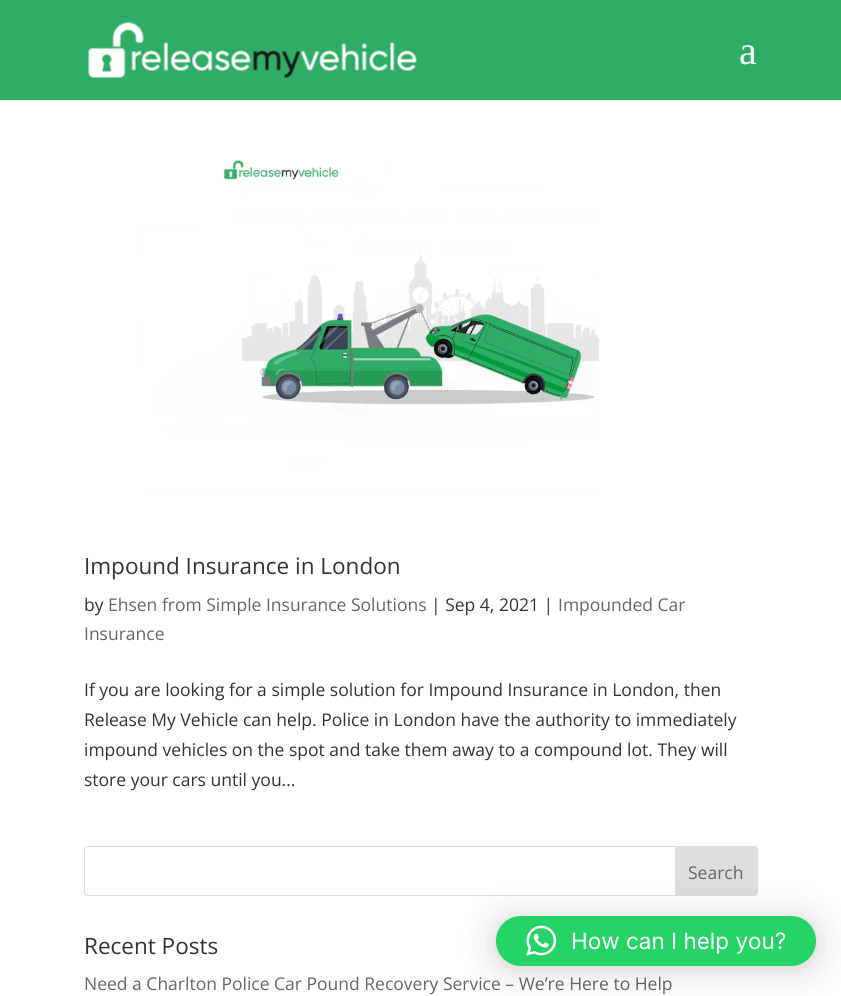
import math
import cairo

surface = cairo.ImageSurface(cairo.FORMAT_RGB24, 841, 996)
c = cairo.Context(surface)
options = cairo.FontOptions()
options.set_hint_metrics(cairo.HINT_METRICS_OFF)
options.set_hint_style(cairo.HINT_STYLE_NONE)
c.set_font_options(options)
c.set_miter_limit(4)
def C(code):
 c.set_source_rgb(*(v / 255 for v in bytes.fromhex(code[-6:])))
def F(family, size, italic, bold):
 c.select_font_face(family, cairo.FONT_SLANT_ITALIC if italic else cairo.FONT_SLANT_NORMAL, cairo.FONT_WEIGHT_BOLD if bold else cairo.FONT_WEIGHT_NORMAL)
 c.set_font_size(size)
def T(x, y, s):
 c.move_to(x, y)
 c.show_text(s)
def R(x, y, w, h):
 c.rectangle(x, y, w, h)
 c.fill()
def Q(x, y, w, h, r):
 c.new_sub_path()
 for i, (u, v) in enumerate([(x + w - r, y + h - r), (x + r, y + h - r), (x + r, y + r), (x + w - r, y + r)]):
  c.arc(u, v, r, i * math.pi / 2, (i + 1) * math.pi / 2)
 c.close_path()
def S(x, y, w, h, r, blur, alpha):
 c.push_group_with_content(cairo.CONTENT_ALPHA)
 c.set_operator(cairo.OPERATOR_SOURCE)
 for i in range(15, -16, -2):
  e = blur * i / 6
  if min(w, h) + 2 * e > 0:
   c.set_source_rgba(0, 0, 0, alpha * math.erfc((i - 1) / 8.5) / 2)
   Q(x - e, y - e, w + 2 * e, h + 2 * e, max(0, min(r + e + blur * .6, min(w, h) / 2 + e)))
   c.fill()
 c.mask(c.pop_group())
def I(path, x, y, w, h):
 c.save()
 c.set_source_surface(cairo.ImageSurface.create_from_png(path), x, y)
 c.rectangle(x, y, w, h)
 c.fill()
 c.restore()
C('ffffff')
c.paint()
C('e6e6e6')
R(0,100,841,1)
C('2fac66')
R(0,0,841,100)
I('1.png',88,22,329,56)
F('Liberation Serif',40,0,0)
C('ffffff')
T(739,64,'a')
I('2.png',142,160,457,331)
F('Open Sans',22.5,0,0)
C('333333')
T(84,574,'Impound Insurance in London')
F('Open Sans',17.5,0,0)
T(84,611,'by')
C('666666')
T(108,611,'Ehsen from Simple Insurance Solutions')
C('333333')
T(431,611,'| Sep 4, 2021 |')
C('666666')
T(558,611,'Impounded Car')
T(84,640,'Insurance')
C('333333')
T(84,696,'If you are looking for a simple solution for Impound Insurance in London, then')
T(84,726,'Release My Vehicle can help. Police in London have the authority to immediately')
T(84,756,'impound vehicles on the spot and take them away to a compound lot. They will')
T(84,786,'store your cars until you...')
Q(84.5,846.5,673,49,3.5)
C('dddddd')
c.set_line_width(1)
c.stroke()
c.new_path()
c.move_to(675.5,846.5)
c.line_to(754,846.5)
c.curve_to(756,846.5,757.5,848,757.5,850)
c.line_to(757.5,892)
c.curve_to(757.5,894,756,895.5,754,895.5)
c.line_to(675.5,895.5)
c.close_path()
c.fill_preserve()
c.stroke()
C('666666')
T(688,879,'Search')
F('Open Sans',22.5,0,0)
C('333333')
T(84,954,'Recent Posts')
F('Open Sans',17.5,0,0)
C('666666')
T(84,990,'Need a Charlton Police Car Pound Recovery Service – We’re Here to Help')
C('000000')
S(496,919,320,50,25,20,.16)
S(496,918,320,50,25,4,.06)
C('25d366')
Q(496,916,320,50,25)
c.fill()
I('3.png',526,925,31,31)
F('Inter',22.5,0,0)
C('ffffff')
T(571,949,'How can I help you?')
surface.write_to_png('o.png')
